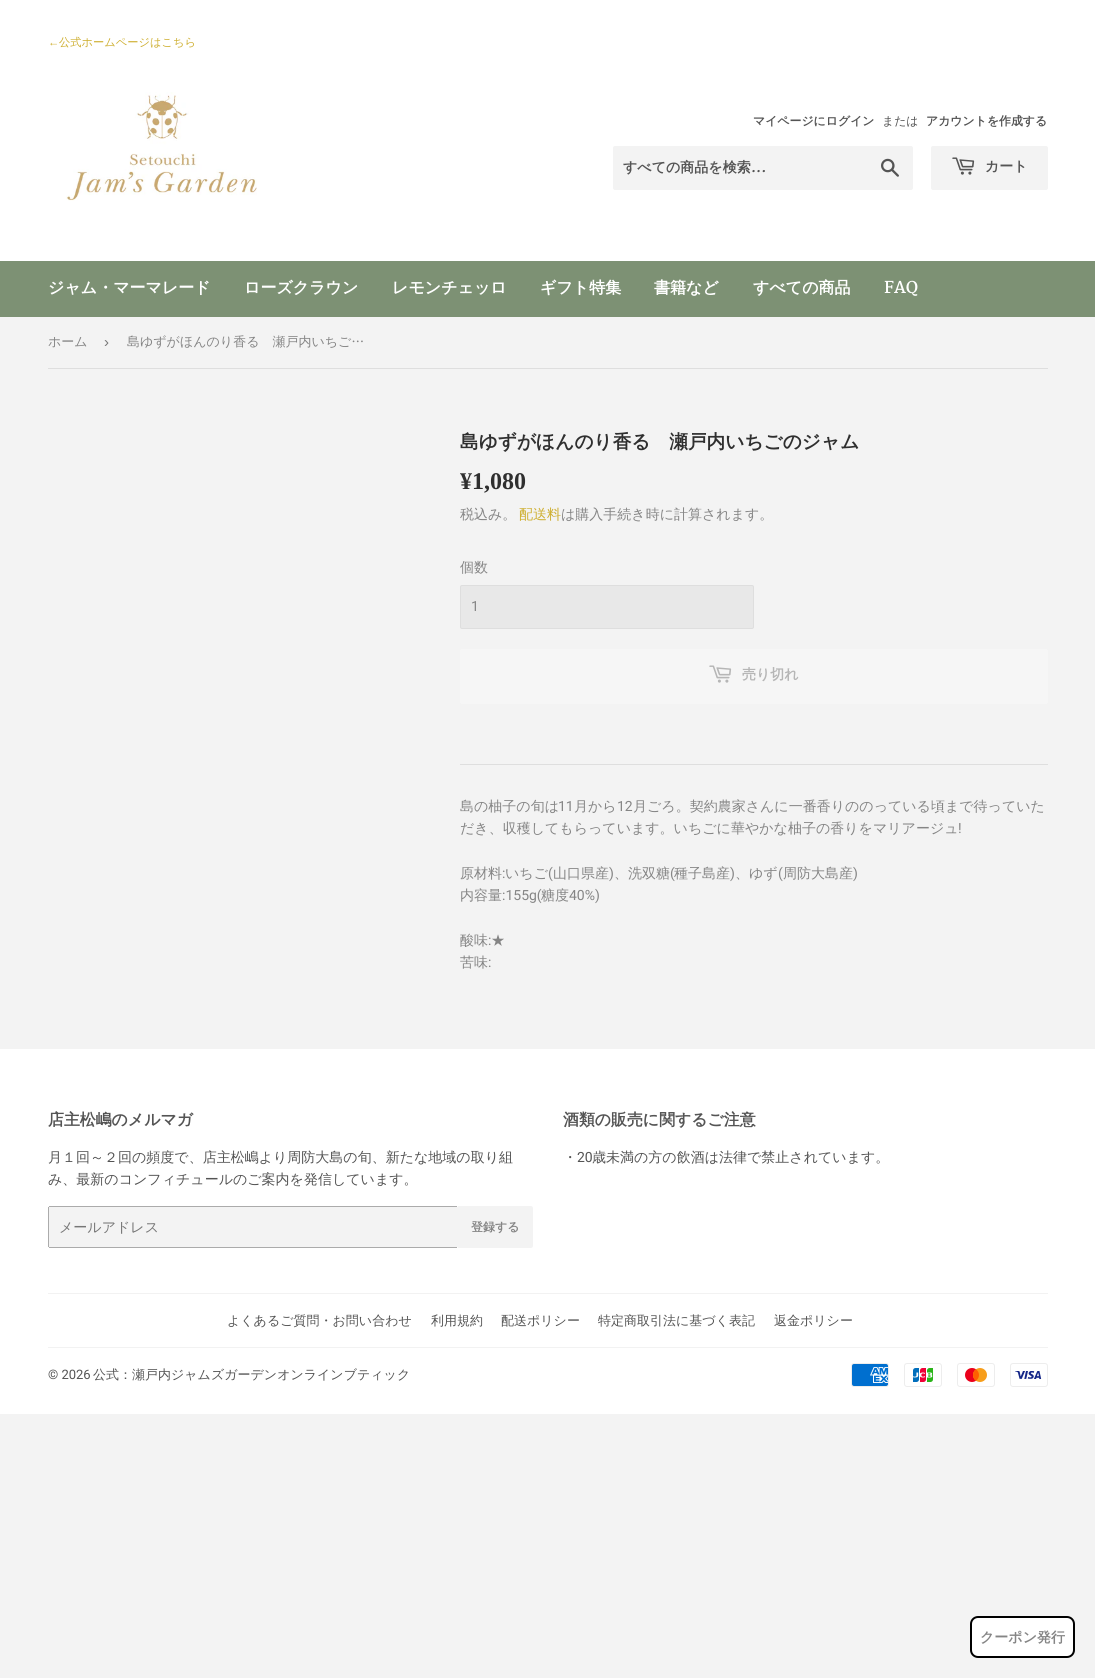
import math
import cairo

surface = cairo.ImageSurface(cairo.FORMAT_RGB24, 1095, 1678)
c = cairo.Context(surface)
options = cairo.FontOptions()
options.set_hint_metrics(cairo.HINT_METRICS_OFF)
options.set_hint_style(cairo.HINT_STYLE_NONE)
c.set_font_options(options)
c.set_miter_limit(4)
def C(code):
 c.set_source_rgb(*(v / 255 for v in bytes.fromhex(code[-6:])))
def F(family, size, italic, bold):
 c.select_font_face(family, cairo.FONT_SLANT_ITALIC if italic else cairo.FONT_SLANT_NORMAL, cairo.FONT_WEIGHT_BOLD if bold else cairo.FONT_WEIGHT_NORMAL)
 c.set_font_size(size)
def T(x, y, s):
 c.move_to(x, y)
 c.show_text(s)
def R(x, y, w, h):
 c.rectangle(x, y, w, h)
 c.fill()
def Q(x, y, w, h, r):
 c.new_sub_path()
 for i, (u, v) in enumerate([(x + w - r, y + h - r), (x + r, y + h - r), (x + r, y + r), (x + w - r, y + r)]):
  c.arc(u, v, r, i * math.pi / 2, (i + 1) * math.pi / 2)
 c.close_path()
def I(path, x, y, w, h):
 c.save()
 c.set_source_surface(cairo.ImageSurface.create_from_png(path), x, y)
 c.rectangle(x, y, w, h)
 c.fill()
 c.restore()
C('f3f3f3')
c.paint()
C('ffffff')
R(0,0,1095,261)
F('Liberation Sans',11.25,0,0)
C('ceaf31')
T(48,46,'←')
F('WenQuanYi Zen Hei Medium',11.25,0,0)
T(59,46,'公式ホームページはこちら')
I('1.png',66,92,191,109)
F('WenQuanYi Zen Hei',11.9,0,1)
C('545454')
T(753,125,'マイページにログイン')
F('WenQuanYi Zen Hei Medium',11.9,0,0)
T(882,125,'または')
F('WenQuanYi Zen Hei',11.9,0,1)
T(926,125,'アカウントを作成する')
C('f3f3f3')
Q(613,146,300,44,2)
c.fill()
F('WenQuanYi Zen Hei',14,0,1)
C('545454')
T(623,172,'すべての商品を検索')
F('Martel',14,0,1)
T(751,172,'...')
I('2.png',881,158,18,19)
C('f3f3f3')
Q(931,146,117,44,2)
c.fill()
I('3.png',952,157,23,18)
F('WenQuanYi Zen Hei',14,0,1)
C('545454')
T(985,171,'カート')
C('7d9174')
R(0,261,1095,56)
F('WenQuanYi Zen Hei',16,0,1)
C('ffffff')
T(48,293,'ジャム・マーマレード')
T(244,293,'ローズクラウン')
T(392,293,'レモンチェッロ')
T(540,293,'ギフト特集')
T(654,293,'書籍など')
T(753,293,'すべての商品')
F('Martel',16,0,1)
T(884,293,'FAQ')
C('dedede')
R(48,368,1000,1)
F('WenQuanYi Zen Hei Medium',13,0,0)
C('858585')
T(48,346,'ホーム')
F('Liberation Sans',15,0,0)
C('767676')
T(104,347,'›')
F('WenQuanYi Zen Hei Medium',13,0,0)
C('858585')
T(127,346,'島ゆずがほんのり香る　瀬戸内いちご…')
F('WenQuanYi Zen Hei',18.7,0,1)
C('2f2f2f')
T(460,448,'島ゆずがほんのり香る　瀬戸内いちごのジャム')
F('Liberation Serif',24,0,1)
T(460,489,'¥1,080')
F('WenQuanYi Zen Hei Medium',14,0,0)
C('858585')
T(460,519,'税込み。')
C('ceaf31')
T(519,519,'配送料')
C('858585')
T(561,519,'は購入手続き時に計算されます。')
T(460,572,'個数')
C('e8e8e8')
Q(460.5,585.5,293,43,1.5)
c.fill_preserve()
C('dedede')
c.set_line_width(1)
c.stroke()
F('Roboto',14,0,0)
C('858585')
T(471,611,'1')
C('f6f6f6')
Q(460,649,588,55,2)
c.fill()
I('4.png',709,665,23,18)
F('WenQuanYi Zen Hei',14,0,1)
C('b6b6b6')
T(742,679,'売り切れ')
C('dedede')
R(460,764,588,1)
F('WenQuanYi Zen Hei Medium',14,0,0)
C('858585')
T(460,811,'島の柚子の旬は')
F('Roboto',14,0,0)
T(558,811,'11')
F('WenQuanYi Zen Hei Medium',14,0,0)
T(574,811,'月から')
F('Roboto',14,0,0)
T(617,811,'12')
F('WenQuanYi Zen Hei Medium',14,0,0)
T(633,811,'月ごろ。契約農家さんに一番香りののっている頃まで待っていた')
T(460,833,'だき、収穫してもらっています。いちごに華やかな柚子の香りをマリアージュ')
F('Roboto',14,0,0)
T(958,833,'!')
F('WenQuanYi Zen Hei Medium',14,0,0)
T(460,878,'原材料')
F('Roboto',14,0,0)
T(502,878,':')
F('WenQuanYi Zen Hei Medium',14,0,0)
T(505,878,'いちご')
F('Roboto',14,0,0)
T(548,878,'(')
F('WenQuanYi Zen Hei Medium',14,0,0)
T(553,878,'山口県産')
F('Roboto',14,0,0)
T(609,878,')')
F('WenQuanYi Zen Hei Medium',14,0,0)
T(614,878,'、洗双糖')
F('Roboto',14,0,0)
T(670,878,'(')
F('WenQuanYi Zen Hei Medium',14,0,0)
T(674,878,'種子島産')
F('Roboto',14,0,0)
T(730,878,')')
F('WenQuanYi Zen Hei Medium',14,0,0)
T(735,878,'、ゆず')
F('Roboto',14,0,0)
T(778,878,'(')
F('WenQuanYi Zen Hei Medium',14,0,0)
T(783,878,'周防大島産')
F('Roboto',14,0,0)
T(853,878,')')
F('WenQuanYi Zen Hei Medium',14,0,0)
T(460,900,'内容量')
F('Roboto',14,0,0)
T(502,900,':155g(')
F('WenQuanYi Zen Hei Medium',14,0,0)
T(541,900,'糖度')
F('Roboto',14,0,0)
T(569,900,'40%)')
F('WenQuanYi Zen Hei Medium',14,0,0)
T(460,945,'酸味')
F('Roboto',14,0,0)
T(488,945,':')
F('WenQuanYi Zen Hei Medium',14,0,0)
T(491,945,'★')
T(460,967,'苦味')
F('Roboto',14,0,0)
T(488,967,':')
C('ffffff')
R(0,1049,1095,365)
F('WenQuanYi Zen Hei',15.9,0,1)
C('545454')
T(48,1125,'店主松嶋のメルマガ')
F('WenQuanYi Zen Hei Medium',14,0,0)
T(48,1162,'月１回～２回の頻度で、店主松嶋より周防大島の旬、新たな地域の取り組')
T(48,1184,'み、最新のコンフィチュールのご案内を発信しています。')
C('f3f3f3')
Q(48,1206,410,42,2)
c.fill()
C('ababab')
R(49,1206,408,1)
R(49,1247,408,1)
R(48,1207,1,40)
C('767676')
T(59,1232,'メールアドレス')
C('f3f3f3')
c.new_path()
c.move_to(458,1206)
c.line_to(531,1206)
c.curve_to(532,1206,533,1207,533,1208)
c.line_to(533,1246)
c.curve_to(533,1247,532,1248,531,1248)
c.line_to(458,1248)
c.close_path()
c.fill()
F('WenQuanYi Zen Hei',12,0,1)
C('858585')
T(471,1231,'登録する')
F('WenQuanYi Zen Hei',15.9,0,1)
C('545454')
T(563,1125,'酒類の販売に関するご注意')
F('WenQuanYi Zen Hei Medium',14,0,0)
T(563,1162,'・')
F('Roboto',14,0,0)
T(577,1162,'20')
F('WenQuanYi Zen Hei Medium',14,0,0)
T(592,1162,'歳未満の方の飲酒は法律で禁止されています。')
C('f2f2f2')
R(48,1293,1000,1)
F('WenQuanYi Zen Hei Medium',13,0,0)
C('545454')
T(227,1325,'よくあるご質問・お問い合わせ')
T(431,1325,'利用規約')
T(501,1325,'配送ポリシー')
T(598,1325,'特定商取引法に基づく表記')
T(774,1325,'返金ポリシー')
C('f2f2f2')
R(48,1347,1000,1)
F('Roboto',13,0,0)
C('545454')
T(48,1379,'© 2026')
F('WenQuanYi Zen Hei Medium',13,0,0)
T(93,1379,'公式：瀬戸内ジャムズガーデンオンラインブティック')
I('5.png',851,1363,38,24)
I('6.png',904,1363,38,24)
I('7.png',957,1363,38,24)
I('8.png',1010,1363,38,24)
C('ffffff')
Q(971,1617,103,40,7)
c.fill_preserve()
C('000000')
c.set_line_width(2)
c.stroke()
F('WenQuanYi Zen Hei',14,0,1)
C('858585')
T(980,1642,'クーポン発行')
surface.write_to_png('o.png')
